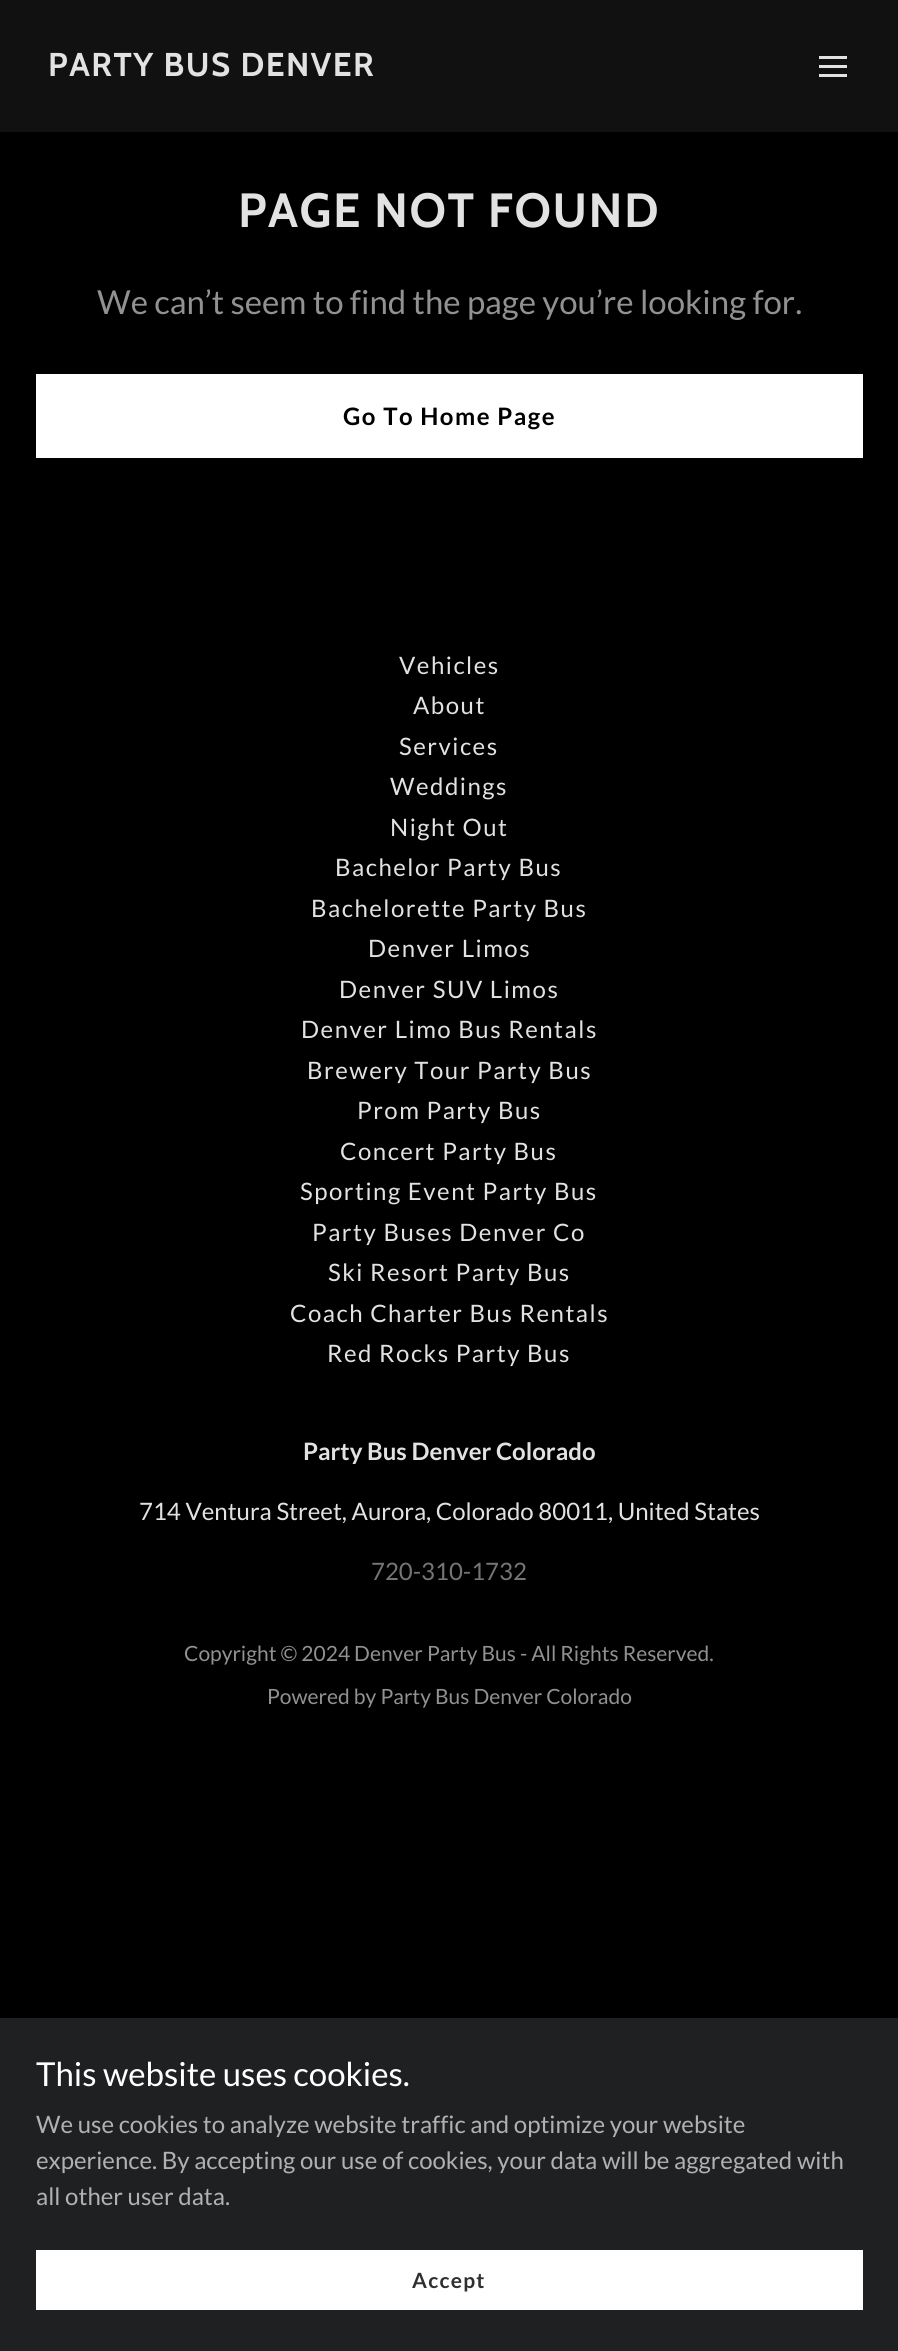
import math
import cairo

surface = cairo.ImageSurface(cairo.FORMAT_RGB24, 898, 2351)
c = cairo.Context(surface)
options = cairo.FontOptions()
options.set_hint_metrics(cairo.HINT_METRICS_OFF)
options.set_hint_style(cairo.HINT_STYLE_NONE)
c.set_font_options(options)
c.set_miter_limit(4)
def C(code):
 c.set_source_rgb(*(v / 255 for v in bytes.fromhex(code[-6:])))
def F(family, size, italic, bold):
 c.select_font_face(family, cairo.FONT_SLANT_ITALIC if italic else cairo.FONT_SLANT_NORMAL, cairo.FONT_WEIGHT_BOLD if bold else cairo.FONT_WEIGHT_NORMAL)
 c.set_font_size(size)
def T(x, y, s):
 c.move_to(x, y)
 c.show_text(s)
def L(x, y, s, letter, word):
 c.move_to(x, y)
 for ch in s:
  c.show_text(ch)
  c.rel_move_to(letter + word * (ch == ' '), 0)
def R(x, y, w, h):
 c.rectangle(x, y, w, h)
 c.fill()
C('000000')
c.paint()
C('111111')
R(0,0,898,132)
F('Cabin',33,0,1)
C('e2e2e2')
L(48,76,'PARTY BUS DENVER',1.5,0)
R(819,56,28,3)
R(819,65,28,3)
R(819,74,28,3)
F('Cabin',48,0,1)
L(238,227,'PAGE NOT FOUND',1.5,0)
F('Lato',33,0,0)
C('919191')
T(97,314,'We can’t seem to find the page you’re looking for.')
C('ffffff')
R(36,374,827,84)
F('Lato',24,0,1)
C('000000')
L(343,425,'Go To Home Page',1.5,0)
F('Lato',24,0,0)
C('e2e2e2')
L(399,674,'Vehicles',1.5,0)
L(413,714,'About',1.5,0)
L(399,755,'Services',1.5,0)
L(390,795,'Weddings',1.5,0)
L(390,836,'Night Out',1.5,0)
L(335,876,'Bachelor Party Bus',1.5,0)
L(311,917,'Bachelorette Party Bus',1.5,0)
L(368,957,'Denver Limos',1.5,0)
L(339,998,'Denver SUV Limos',1.5,0)
L(301,1038,'Denver Limo Bus Rentals',1.5,0)
L(307,1079,'Brewery Tour Party Bus',1.5,0)
L(357,1119,'Prom Party Bus',1.5,0)
L(340,1160,'Concert Party Bus',1.5,0)
L(300,1200,'Sporting Event Party Bus',1.5,0)
L(312,1241,'Party Buses Denver Co',1.5,0)
L(328,1281,'Ski Resort Party Bus',1.5,0)
L(290,1322,'Coach Charter Bus Rentals',1.5,0)
L(327,1362,'Red Rocks Party Bus',1.5,0)
F('Lato',24,0,1)
T(303,1460,'Party Bus Denver Colorado')
F('Lato',24,0,0)
T(139,1520,'714 Ventura Street, Aurora, Colorado 80011, United States')
C('747575')
T(371,1580,'720-310-1732')
F('Lato',21,0,0)
C('919191')
T(184,1661,'Copyright © 2024 Denver Party Bus - All Rights Reserved.')
T(267,1704,'Powered by Party Bus Denver Colorado')
C('1f2021')
R(0,2018,898,333)
F('Lato',33,0,0)
C('ffffff')
T(36,2086,'This website uses cookies.')
F('Lato',24,0,0)
C('b0b1b3')
T(36,2133,'We use cookies to analyze website traffic and optimize your website')
T(36,2169,'experience. By accepting our use of cookies, your data will be aggregated with')
T(36,2205,'all other user data.')
C('ffffff')
R(36,2250,827,60)
F('Lato',21,0,1)
C('303030')
L(412,2288,'Accept',1.25,0)
surface.write_to_png('o.png')
